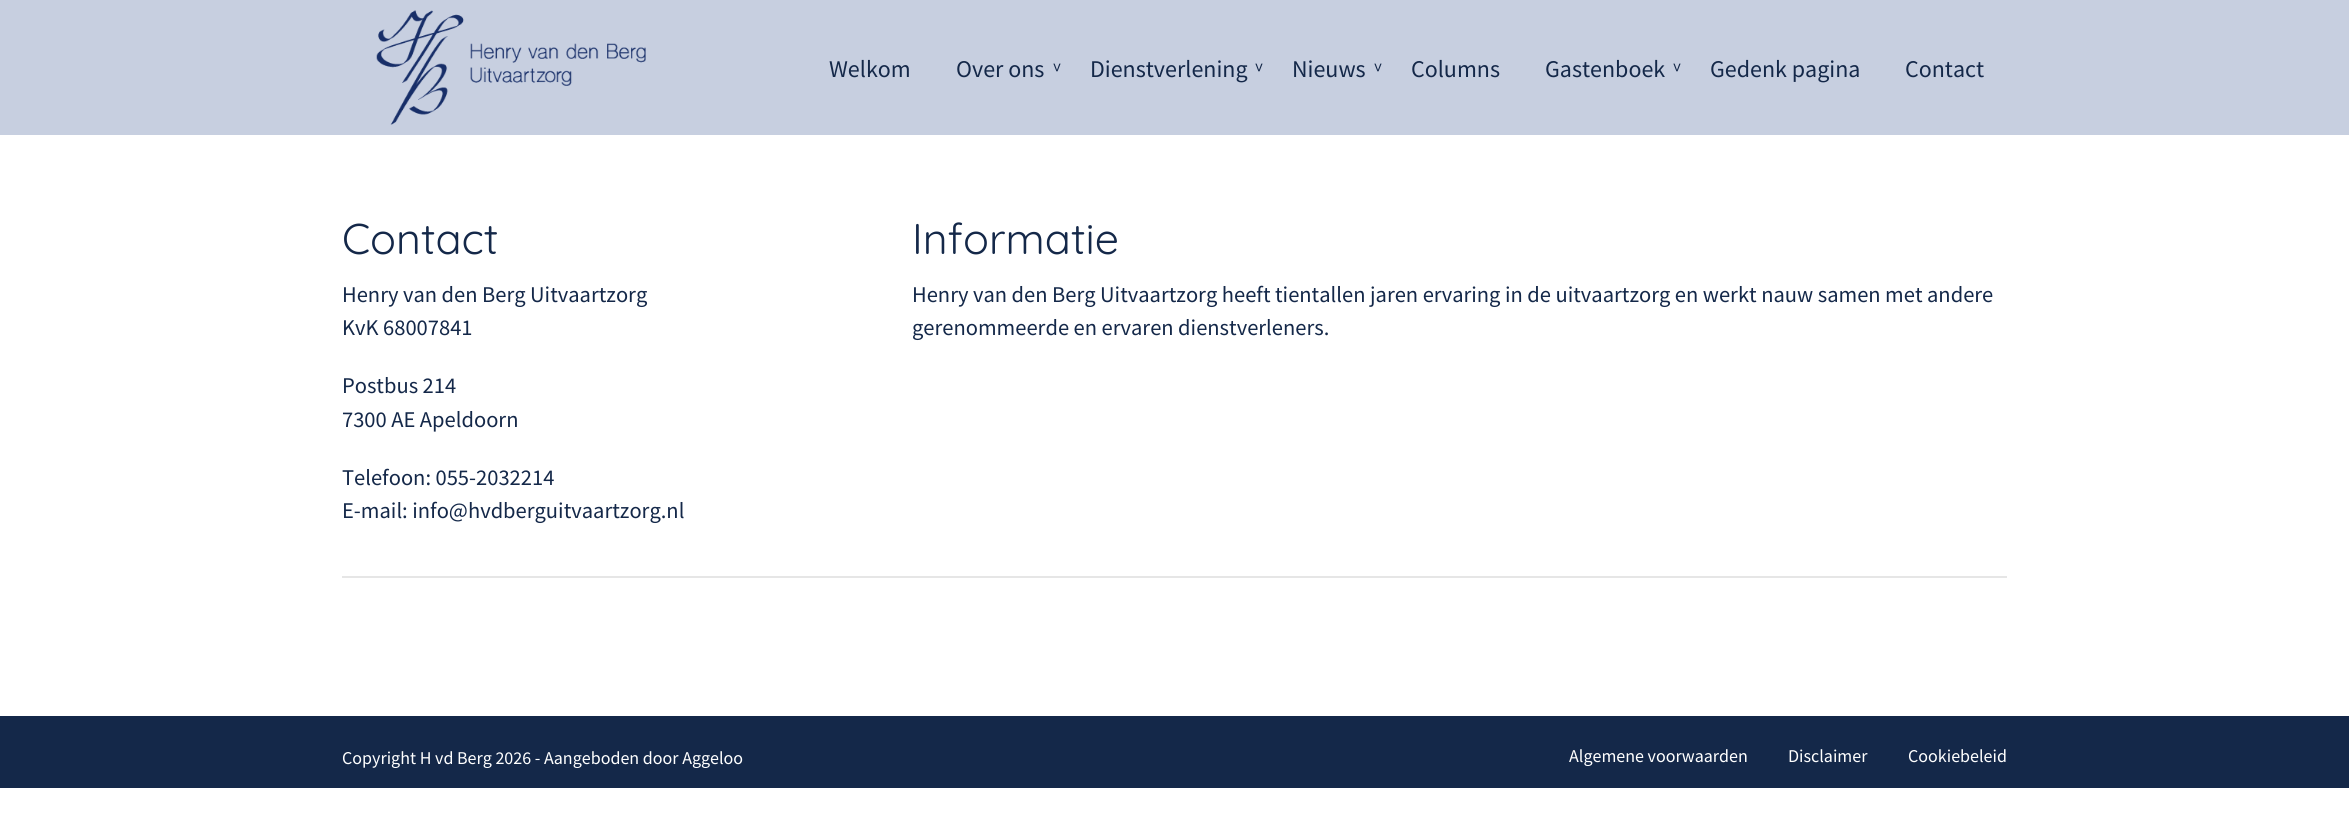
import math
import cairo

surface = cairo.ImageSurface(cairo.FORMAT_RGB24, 2349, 824)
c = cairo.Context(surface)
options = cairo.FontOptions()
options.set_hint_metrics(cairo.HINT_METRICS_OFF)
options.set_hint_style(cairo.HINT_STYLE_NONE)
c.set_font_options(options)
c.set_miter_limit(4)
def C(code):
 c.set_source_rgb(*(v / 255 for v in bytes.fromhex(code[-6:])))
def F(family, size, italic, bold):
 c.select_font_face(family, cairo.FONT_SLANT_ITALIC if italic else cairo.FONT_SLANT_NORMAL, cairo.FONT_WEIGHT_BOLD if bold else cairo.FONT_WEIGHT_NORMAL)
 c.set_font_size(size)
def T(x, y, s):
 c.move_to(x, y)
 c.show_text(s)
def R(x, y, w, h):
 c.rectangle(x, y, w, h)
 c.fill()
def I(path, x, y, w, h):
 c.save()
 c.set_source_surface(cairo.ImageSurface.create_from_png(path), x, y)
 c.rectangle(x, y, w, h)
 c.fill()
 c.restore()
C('ffffff')
c.paint()
C('c7cfe0')
R(0,0,2349,135)
I('1.png',376,10,270,115)
F('Source Sans Pro',24,0,0)
C('142849')
T(829,77,'Welkom')
T(956,77,'Over ons')
F('Source Sans Pro',18,0,0)
c.save()
c.translate(1051,63)
c.rotate(90 * math.pi / 180)
T(0,0,'>')
c.restore()
F('Source Sans Pro',24,0,0)
T(1090,77,'Dienstverlening')
F('Source Sans Pro',18,0,0)
c.save()
c.translate(1253,63)
c.rotate(90 * math.pi / 180)
T(0,0,'>')
c.restore()
F('Source Sans Pro',24,0,0)
T(1292,77,'Nieuws')
F('Source Sans Pro',18,0,0)
c.save()
c.translate(1372,63)
c.rotate(90 * math.pi / 180)
T(0,0,'>')
c.restore()
F('Source Sans Pro',24,0,0)
T(1411,77,'Columns')
T(1545,77,'Gastenboek')
F('Source Sans Pro',18,0,0)
c.save()
c.translate(1671,63)
c.rotate(90 * math.pi / 180)
T(0,0,'>')
c.restore()
F('Source Sans Pro',24,0,0)
T(1710,77,'Gedenk pagina')
T(1905,77,'Contact')
F('Quicksand Light',43,0,0)
T(342,254,'Contact')
F('Source Sans Pro',22.5,0,0)
T(342,302,'Henry van den Berg Uitvaartzorg')
T(342,335,'KvK 68007841')
T(342,393,'Postbus 214')
T(342,427,'7300 AE Apeldoorn')
T(342,485,'Telefoon: 055-2032214')
T(342,518,'E-mail: info@hvdberguitvaartzorg.nl')
F('Quicksand Light',43,0,0)
T(912,254,'Informatie')
F('Source Sans Pro',22.5,0,0)
T(912,302,'Henry van den Berg Uitvaartzorg heeft tientallen jaren ervaring in de uitvaartzorg en werkt nauw samen met andere')
T(912,335,'gerenommeerde en ervaren dienstverleners.')
C('e6e6e6')
R(342,576,1665,2)
C('142849')
R(0,716,2349,72)
F('Source Sans Pro',18,0,0)
C('ffffff')
T(342,764,'Copyright H vd Berg 2026 - Aangeboden door Aggeloo')
T(1569,762,'Algemene voorwaarden')
T(1788,762,'Disclaimer')
T(1908,762,'Cookiebeleid')
surface.write_to_png('o.png')
